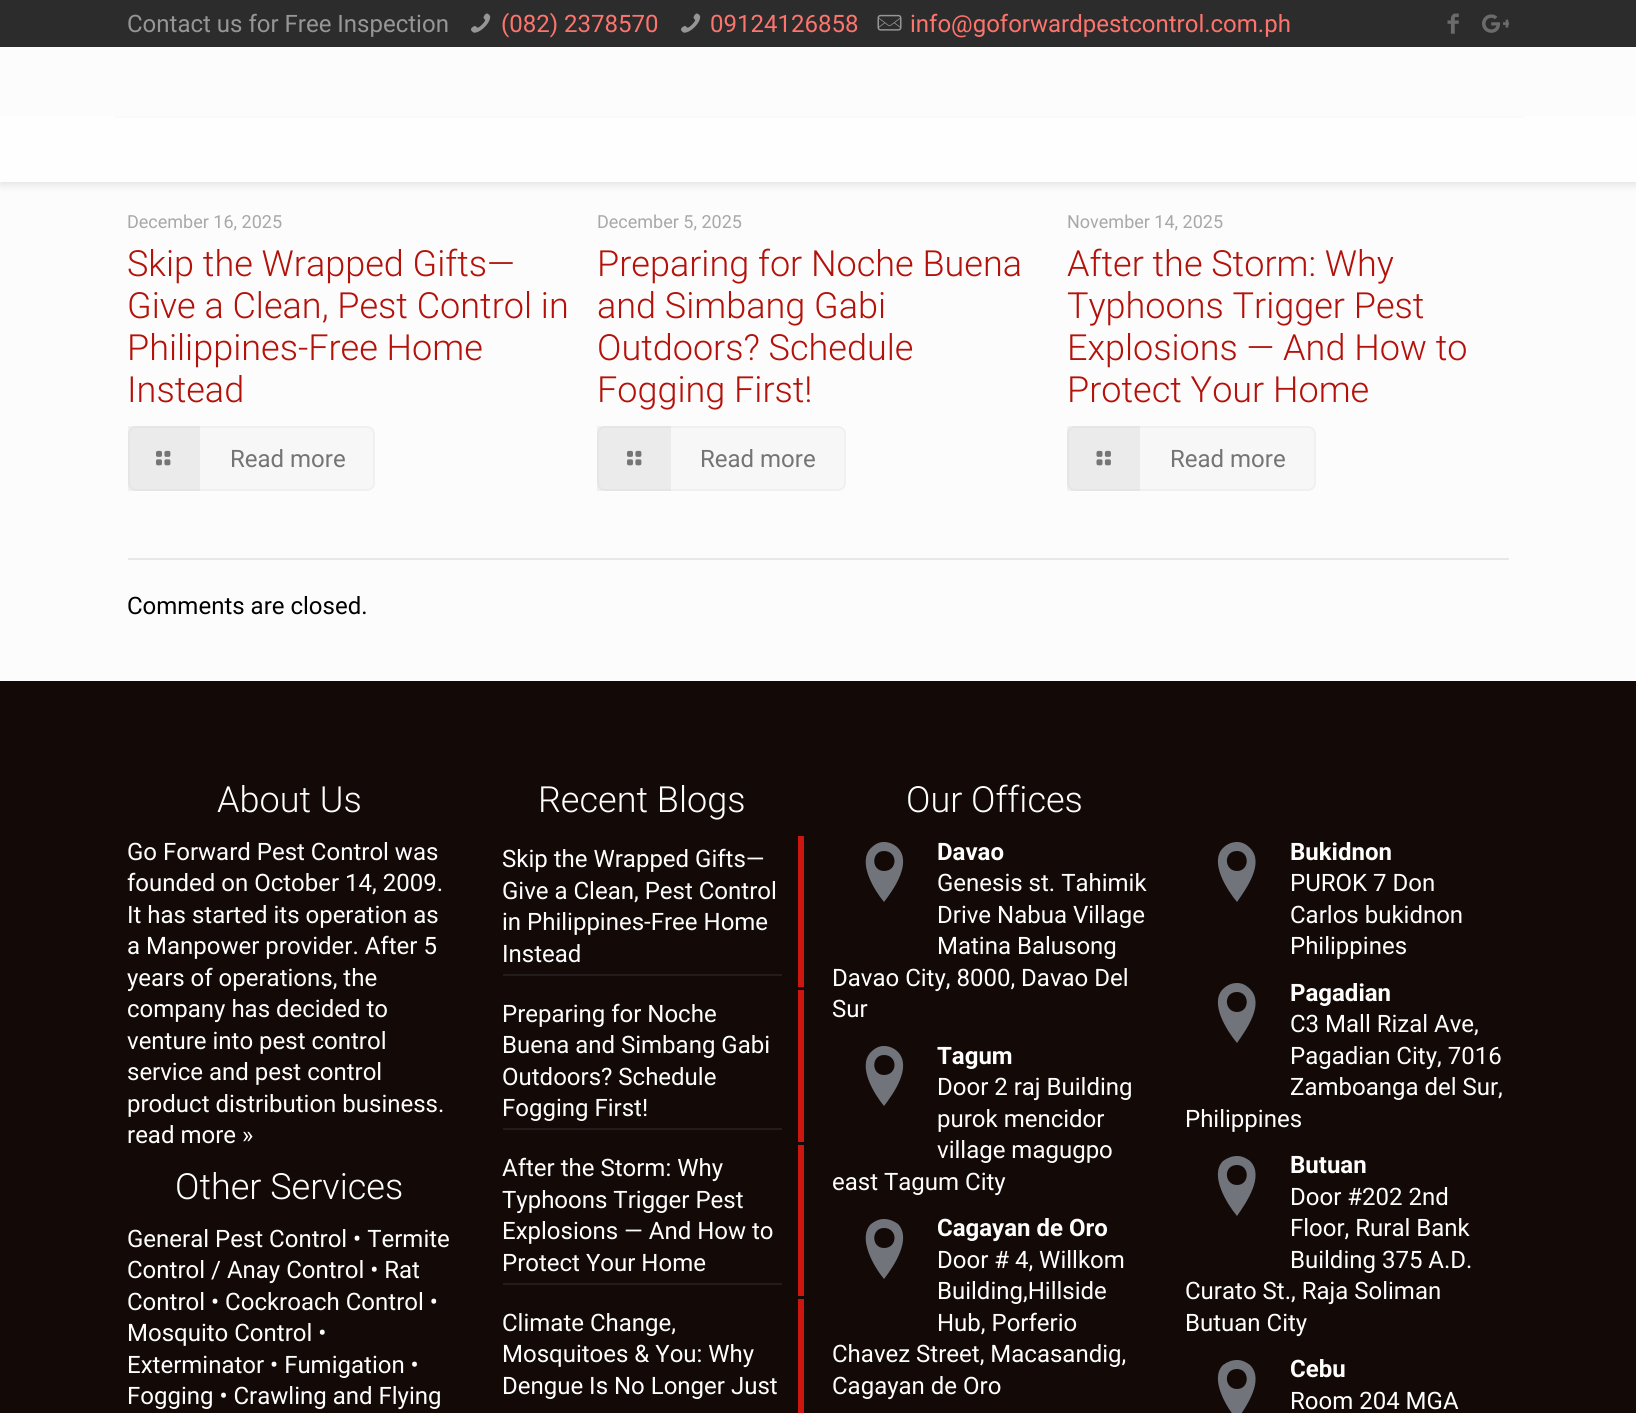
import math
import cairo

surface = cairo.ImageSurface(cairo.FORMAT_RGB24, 1636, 1413)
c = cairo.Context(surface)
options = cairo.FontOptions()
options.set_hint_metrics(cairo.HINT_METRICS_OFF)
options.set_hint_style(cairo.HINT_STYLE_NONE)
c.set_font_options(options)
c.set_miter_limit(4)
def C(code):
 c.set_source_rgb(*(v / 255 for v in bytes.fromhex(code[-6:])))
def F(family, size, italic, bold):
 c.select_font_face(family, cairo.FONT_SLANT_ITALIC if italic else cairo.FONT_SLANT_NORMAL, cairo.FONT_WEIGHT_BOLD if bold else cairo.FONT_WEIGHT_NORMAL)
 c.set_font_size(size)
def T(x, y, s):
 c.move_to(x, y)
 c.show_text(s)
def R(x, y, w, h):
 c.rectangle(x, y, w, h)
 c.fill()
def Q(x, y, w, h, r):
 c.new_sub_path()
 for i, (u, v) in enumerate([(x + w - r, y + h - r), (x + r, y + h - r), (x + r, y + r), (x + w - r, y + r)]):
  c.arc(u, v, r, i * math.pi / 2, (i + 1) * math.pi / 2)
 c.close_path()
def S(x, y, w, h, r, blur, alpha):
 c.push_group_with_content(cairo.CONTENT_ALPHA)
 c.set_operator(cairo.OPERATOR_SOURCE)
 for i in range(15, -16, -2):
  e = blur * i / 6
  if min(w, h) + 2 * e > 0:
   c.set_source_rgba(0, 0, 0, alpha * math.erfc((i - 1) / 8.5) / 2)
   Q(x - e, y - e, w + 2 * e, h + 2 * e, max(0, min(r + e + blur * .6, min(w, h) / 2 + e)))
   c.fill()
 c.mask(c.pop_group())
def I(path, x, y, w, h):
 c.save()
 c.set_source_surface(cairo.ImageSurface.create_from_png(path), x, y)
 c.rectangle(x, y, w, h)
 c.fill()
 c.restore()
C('fcfcfc')
c.paint()
C('2c2c2c')
R(0,0,1636,47)
F('Roboto',24,0,0)
C('969696')
T(127,32,'Contact us for Free Inspection')
I('1.png',471,13,20,20)
C('fd746d')
T(501,32,'(082) 2378570')
I('1.png',681,13,20,20)
T(710,32,'09124126858')
I('2.png',877,14,25,17)
T(910,32,'info@goforwardpestcontrol.com.ph')
I('3.png',1447,13,12,21)
I('4.png',1482,14,27,19)
C('e8e8e8')
R(114,116,1410,2)
c.save()
c.set_fill_rule(cairo.FILL_RULE_EVEN_ODD)
c.new_path()
c.move_to(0,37)
c.line_to(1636,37)
c.line_to(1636,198)
c.line_to(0,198)
c.close_path()
c.move_to(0,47)
c.line_to(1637,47)
c.line_to(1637,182)
c.line_to(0,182)
c.close_path()
c.clip()
C('000000')
S(0,50,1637,135,0,4,.1)
c.restore()
c.set_source_rgba(1,1,1,0.78)
R(0,116,1636,66)
F('Roboto',18,0,0)
C('a8a8a8')
T(127,228,'December 16, 2025')
F('Roboto Light',36,0,0)
C('b31109')
T(127,276,'Skip the Wrapped Gifts—')
T(127,318,'Give a Clean, Pest Control in')
T(127,360,'Philippines-Free Home')
T(127,402,'Instead')
C('f7f7f7')
Q(129,427,245,63,7)
c.fill_preserve()
C('f0f0f0')
c.stroke()
c.set_source_rgba(0,0,0,0.05)
R(128,426,72,65)
I('5.png',156,450,15,16)
F('Roboto',24,0,0)
C('747474')
T(230,467,'Read more')
F('Roboto',18,0,0)
C('a8a8a8')
T(597,228,'December 5, 2025')
F('Roboto Light',36,0,0)
C('b31109')
T(597,276,'Preparing for Noche Buena')
T(597,318,'and Simbang Gabi')
T(597,360,'Outdoors? Schedule')
T(597,402,'Fogging First!')
C('f7f7f7')
Q(598,427,247,63,7)
c.fill_preserve()
C('f0f0f0')
c.stroke()
c.set_source_rgba(0,0,0,0.05)
R(597,426,74,65)
I('5.png',627,450,15,16)
F('Roboto',24,0,0)
C('747474')
T(700,467,'Read more')
F('Roboto',18,0,0)
C('a8a8a8')
T(1067,228,'November 14, 2025')
F('Roboto Light',36,0,0)
C('b31109')
T(1067,276,'After the Storm: Why')
T(1067,318,'Typhoons Trigger Pest')
T(1067,360,'Explosions — And How to')
T(1067,402,'Protect Your Home')
C('f7f7f7')
Q(1068,427,247,63,7)
c.fill_preserve()
C('f0f0f0')
c.stroke()
c.set_source_rgba(0,0,0,0.05)
R(1067,426,73,65)
I('6.png',1096,450,15,16)
F('Roboto',24,0,0)
C('747474')
T(1170,467,'Read more')
C('e8e8e8')
R(128,558,1381,2)
C('000000')
T(127,614,'Comments are closed.')
C('130907')
R(0,681,1636,732)
F('Roboto Light',36,0,0)
C('ffffff')
T(217,812,'About Us')
F('Roboto',24,0,0)
T(127,860,'Go Forward Pest Control was')
T(127,891,'founded on October 14, 2009.')
T(127,923,'It has started its operation as')
T(127,954,'a Manpower provider. After 5')
T(127,986,'years of operations, the')
T(127,1017,'company has decided to')
T(127,1049,'venture into pest control')
T(127,1080,'service and pest control')
T(127,1112,'product distribution business.')
T(127,1143,'read more »')
F('Roboto Light',36,0,0)
T(175,1199,'Other Services')
F('Roboto',24,0,0)
T(127,1247,'General Pest Control • Termite')
T(127,1278,'Control / Anay Control • Rat')
T(127,1310,'Control • Cockroach Control •')
T(127,1341,'Mosquito Control •')
T(127,1373,'Exterminator • Fumigation •')
T(127,1404,'Fogging • Crawling and Flying')
F('Roboto Light',36,0,0)
T(538,812,'Recent Blogs')
C('241c1a')
R(503,974,279,2)
F('Roboto',24,0,0)
C('ffffff')
T(502,867,'Skip the Wrapped Gifts—')
T(502,899,'Give a Clean, Pest Control')
T(502,930,'in Philippines-Free Home')
T(502,962,'Instead')
C('cd160d')
R(798,836,6,151)
C('241c1a')
R(503,1128,279,2)
C('ffffff')
T(502,1022,'Preparing for Noche')
T(502,1053,'Buena and Simbang Gabi')
T(502,1085,'Outdoors? Schedule')
T(502,1116,'Fogging First!')
C('cd160d')
R(798,990,6,152)
C('241c1a')
R(503,1283,279,2)
C('ffffff')
T(502,1176,'After the Storm: Why')
T(502,1208,'Typhoons Trigger Pest')
T(502,1239,'Explosions — And How to')
T(502,1271,'Protect Your Home')
C('cd160d')
R(798,1145,6,151)
C('ffffff')
T(502,1331,'Climate Change,')
T(502,1362,'Mosquitoes & You: Why')
T(502,1394,'Dengue Is No Longer Just')
C('cd160d')
R(798,1299,6,114)
F('Roboto Light',36,0,0)
C('ffffff')
T(906,812,'Our Offices')
C('71757b')
c.new_path()
c.move_to(884,842)
c.curve_to(889,842,894,844,898,848)
c.curve_to(912,863,894,889,884,902)
c.curve_to(874,890,857,862,871,848)
c.curve_to(875,844,879,842,884,842)
c.close_path()
c.move_to(884,871)
c.curve_to(898,871,898,851,884,851)
c.curve_to(871,851,871,871,884,871)
c.close_path()
c.fill()
F('Roboto',24,0,1)
C('ffffff')
T(937,860,'Davao')
F('Roboto',24,0,0)
T(937,891,'Genesis st. Tahimik')
T(937,923,'Drive Nabua Village')
T(937,954,'Matina Balusong')
T(832,986,'Davao City, 8000, Davao Del')
T(832,1017,'Sur')
C('71757b')
c.new_path()
c.move_to(884,1046)
c.curve_to(889,1046,894,1048,898,1052)
c.curve_to(912,1067,894,1093,884,1106)
c.curve_to(874,1094,857,1066,871,1052)
c.curve_to(875,1048,879,1046,884,1046)
c.close_path()
c.move_to(884,1075)
c.curve_to(898,1075,898,1055,884,1055)
c.curve_to(871,1055,871,1075,884,1075)
c.close_path()
c.fill()
F('Roboto',24,0,1)
C('ffffff')
T(937,1064,'Tagum')
F('Roboto',24,0,0)
T(937,1095,'Door 2 raj Building')
T(937,1127,'purok mencidor')
T(937,1158,'village magugpo')
T(832,1190,'east Tagum City')
C('71757b')
c.new_path()
c.move_to(884,1219)
c.curve_to(889,1219,894,1221,898,1224)
c.curve_to(912,1239,894,1266,884,1279)
c.curve_to(874,1267,857,1238,871,1224)
c.curve_to(875,1221,879,1219,884,1219)
c.close_path()
c.move_to(884,1248)
c.curve_to(898,1248,898,1228,884,1228)
c.curve_to(871,1228,871,1248,884,1248)
c.close_path()
c.fill()
F('Roboto',24,0,1)
C('ffffff')
T(937,1236,'Cagayan de Oro')
F('Roboto',24,0,0)
T(937,1268,'Door # 4, Willkom')
T(937,1299,'Building,Hillside')
T(937,1331,'Hub, Porferio')
T(832,1362,'Chavez Street, Macasandig,')
T(832,1394,'Cagayan de Oro')
C('71757b')
c.new_path()
c.move_to(1237,842)
c.curve_to(1242,842,1246,844,1250,848)
c.curve_to(1265,863,1246,889,1237,902)
c.curve_to(1227,890,1209,862,1223,848)
c.curve_to(1227,844,1232,842,1237,842)
c.close_path()
c.move_to(1237,871)
c.curve_to(1250,871,1250,851,1237,851)
c.curve_to(1223,851,1224,871,1237,871)
c.close_path()
c.fill()
F('Roboto',24,0,1)
C('ffffff')
T(1290,860,'Bukidnon')
F('Roboto',24,0,0)
T(1290,891,'PUROK 7 Don')
T(1290,923,'Carlos bukidnon')
T(1290,954,'Philippines')
C('71757b')
c.new_path()
c.move_to(1237,983)
c.curve_to(1242,983,1246,985,1250,989)
c.curve_to(1265,1004,1246,1030,1237,1043)
c.curve_to(1227,1031,1209,1003,1223,989)
c.curve_to(1227,985,1232,983,1237,983)
c.close_path()
c.move_to(1237,1012)
c.curve_to(1250,1012,1250,992,1237,992)
c.curve_to(1223,992,1224,1012,1237,1012)
c.close_path()
c.fill()
F('Roboto',24,0,1)
C('ffffff')
T(1290,1001,'Pagadian')
F('Roboto',24,0,0)
T(1290,1032,'C3 Mall Rizal Ave,')
T(1290,1064,'Pagadian City, 7016')
T(1290,1095,'Zamboanga del Sur,')
T(1185,1127,'Philippines')
C('71757b')
c.new_path()
c.move_to(1237,1156)
c.curve_to(1242,1156,1246,1158,1250,1161)
c.curve_to(1265,1176,1246,1203,1237,1216)
c.curve_to(1227,1204,1209,1175,1223,1161)
c.curve_to(1227,1158,1232,1156,1237,1156)
c.close_path()
c.move_to(1237,1185)
c.curve_to(1250,1185,1250,1165,1237,1165)
c.curve_to(1223,1165,1224,1185,1237,1185)
c.close_path()
c.fill()
F('Roboto',24,0,1)
C('ffffff')
T(1290,1173,'Butuan')
F('Roboto',24,0,0)
T(1290,1205,'Door #202 2nd')
T(1290,1236,'Floor, Rural Bank')
T(1290,1268,'Building 375 A.D.')
T(1185,1299,'Curato St., Raja Soliman')
T(1185,1331,'Butuan City')
C('71757b')
c.new_path()
c.move_to(1237,1360)
c.curve_to(1242,1360,1246,1362,1250,1365)
c.curve_to(1265,1380,1246,1407,1237,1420)
c.curve_to(1227,1408,1209,1379,1223,1365)
c.curve_to(1227,1362,1232,1360,1237,1360)
c.close_path()
c.move_to(1237,1389)
c.curve_to(1250,1389,1250,1369,1237,1369)
c.curve_to(1223,1369,1224,1389,1237,1389)
c.close_path()
c.fill()
F('Roboto',24,0,1)
C('ffffff')
T(1290,1377,'Cebu')
F('Roboto',24,0,0)
T(1290,1409,'Room 204 MGA')
surface.write_to_png('o.png')
